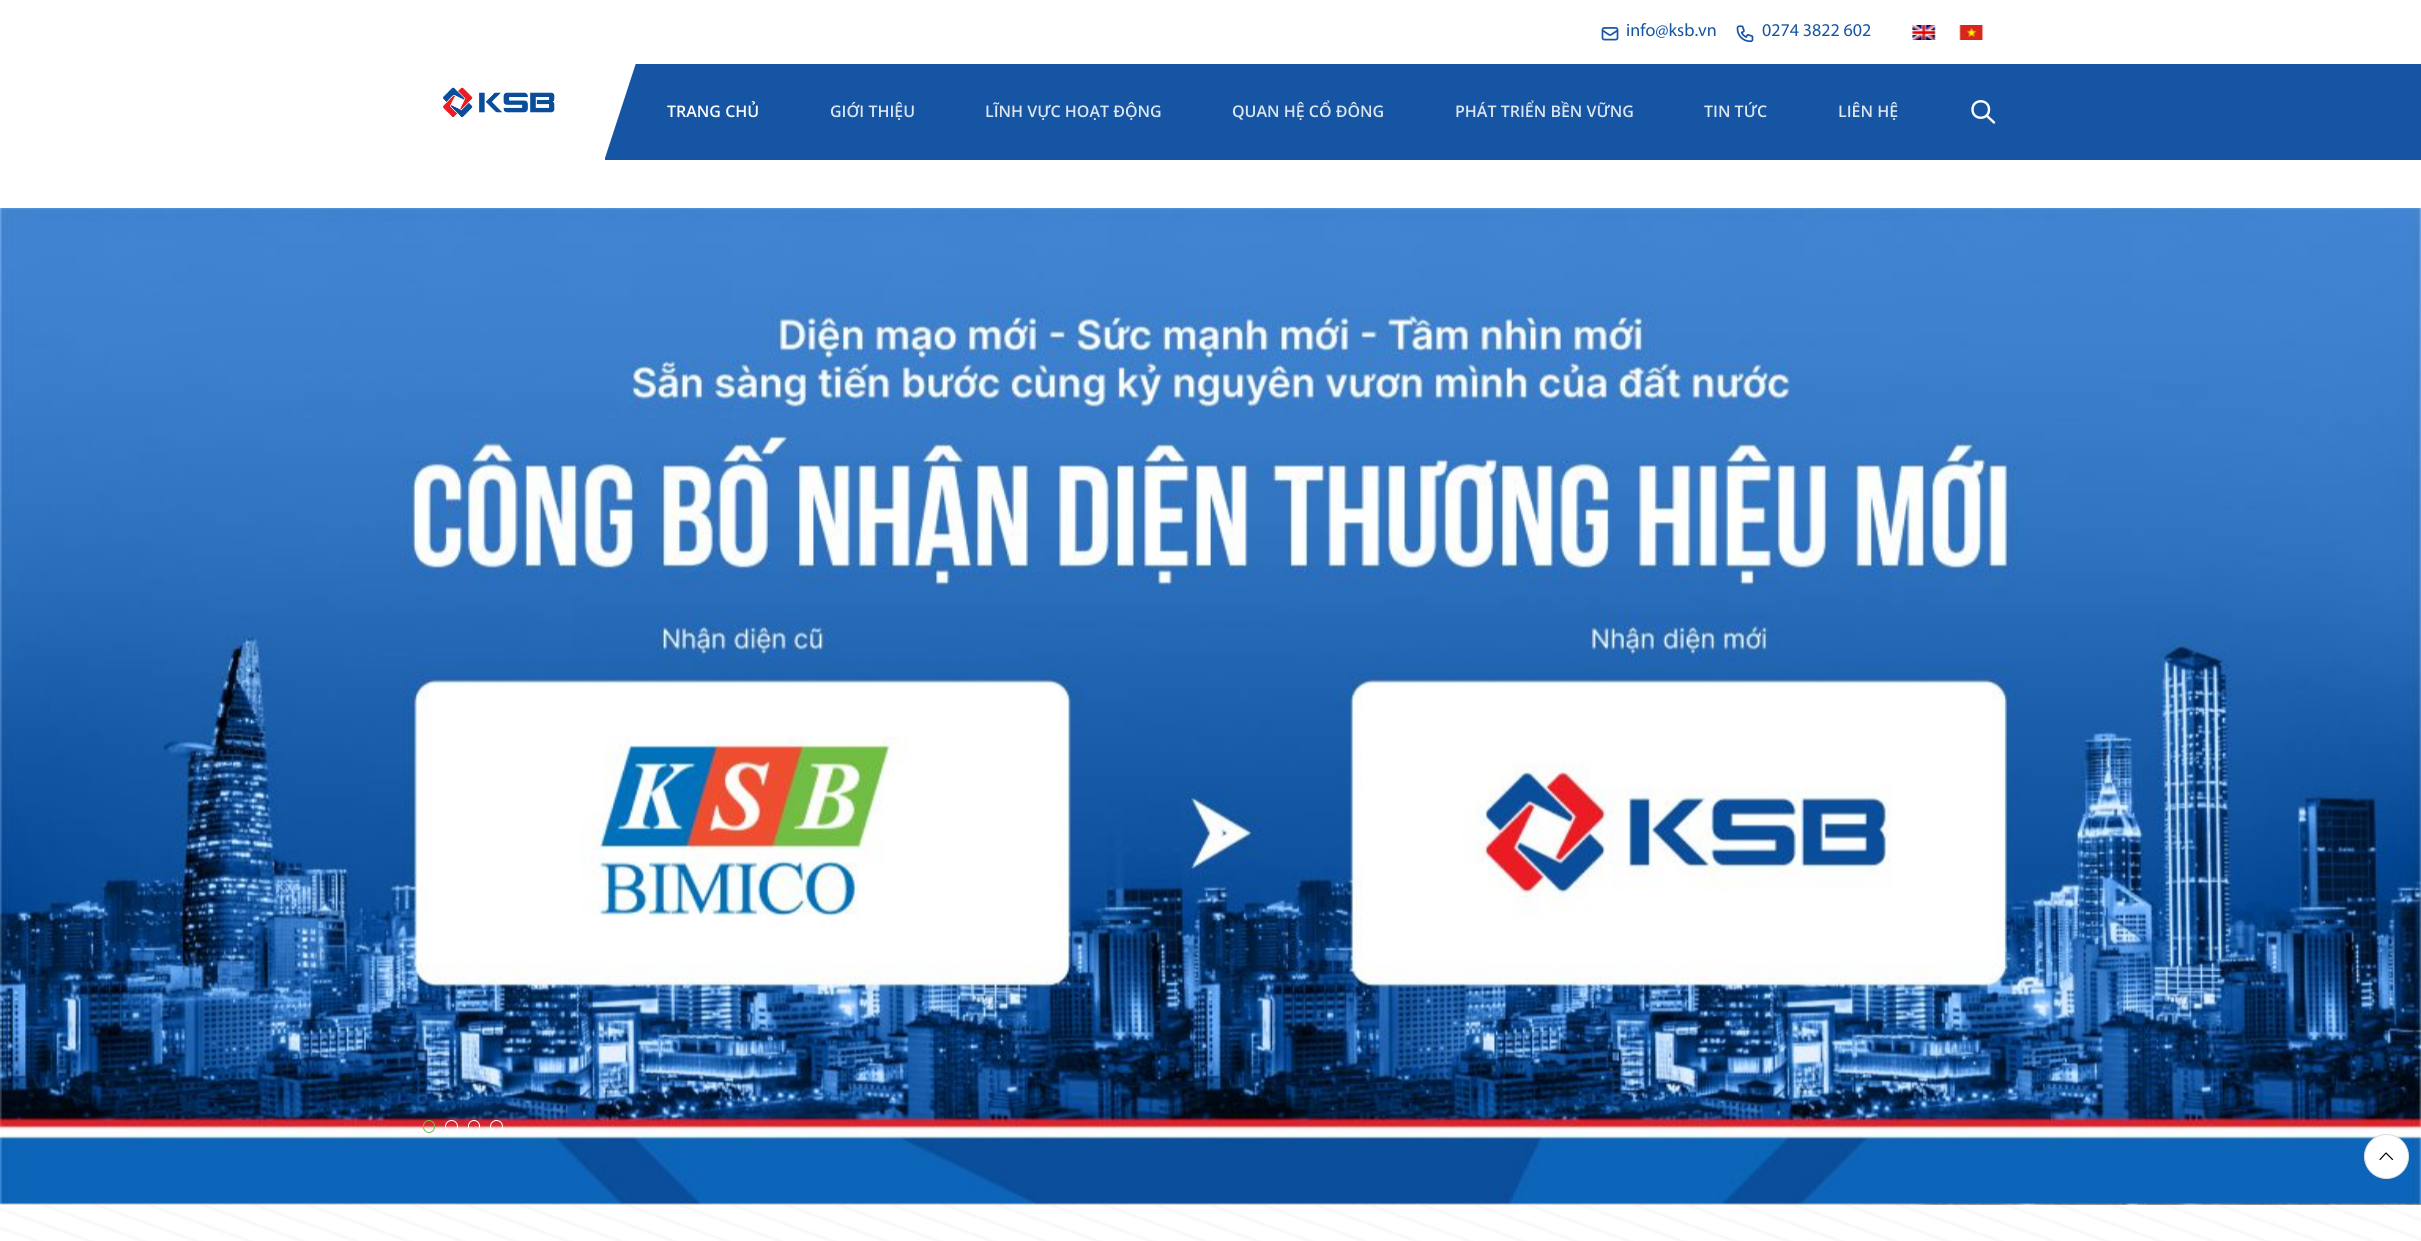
import math
import cairo

surface = cairo.ImageSurface(cairo.FORMAT_RGB24, 2421, 1241)
c = cairo.Context(surface)
options = cairo.FontOptions()
options.set_hint_metrics(cairo.HINT_METRICS_OFF)
options.set_hint_style(cairo.HINT_STYLE_NONE)
c.set_font_options(options)
c.set_miter_limit(4)
def C(code):
 c.set_source_rgb(*(v / 255 for v in bytes.fromhex(code[-6:])))
def F(family, size, italic, bold):
 c.select_font_face(family, cairo.FONT_SLANT_ITALIC if italic else cairo.FONT_SLANT_NORMAL, cairo.FONT_WEIGHT_BOLD if bold else cairo.FONT_WEIGHT_NORMAL)
 c.set_font_size(size)
def T(x, y, s):
 c.move_to(x, y)
 c.show_text(s)
def R(x, y, w, h):
 c.rectangle(x, y, w, h)
 c.fill()
def Q(x, y, w, h, r):
 c.new_sub_path()
 for i, (u, v) in enumerate([(x + w - r, y + h - r), (x + r, y + h - r), (x + r, y + r), (x + w - r, y + r)]):
  c.arc(u, v, r, i * math.pi / 2, (i + 1) * math.pi / 2)
 c.close_path()
def I(path, x, y, w, h):
 c.save()
 c.set_source_surface(cairo.ImageSurface.create_from_png(path), x, y)
 c.rectangle(x, y, w, h)
 c.fill()
 c.restore()
C('ffffff')
c.paint()
C('1555a3')
R(605,64,1816,96)
I('1.png',1601,27,18,14)
F('Myriad',18,0,0)
T(1626,36,'info@ksb.vn')
I('2.png',1736,25,18,18)
T(1762,36,'0274 3822 602')
I('3.png',1912,25,24,15)
I('4.png',1959,25,25,15)
I('5.png',443,87,112,30)
C('ffffff')
c.new_path()
c.move_to(636,63)
c.line_to(605,158)
c.line_to(605,63)
c.close_path()
c.fill()
F('Open Sans SemiBold',16,0,0)
T(667,117,'TRANG CHỦ')
C('dce6f1')
T(830,117,'GIỚI THIỆU')
T(985,117,'LĨNH VỰC HOẠT ĐỘNG')
T(1232,117,'QUAN HỆ CỔ ĐÔNG')
T(1455,117,'PHÁT TRIỂN BỀN VỮNG')
T(1704,117,'TIN TỨC')
T(1838,117,'LIÊN HỆ')
c.new_path()
c.move_to(1994,122.5)
c.line_to(1986.5,115.5)
c.move_to(1989,109.5)
c.curve_to(1989,120.5,1972.5,120.5,1972.5,109.5)
c.curve_to(1972.5,98.5,1989,98.5,1989,109.5)
c.close_path()
C('ffffff')
c.set_line_width(2.4)
c.set_line_cap(cairo.LINE_CAP_ROUND)
c.set_line_join(cairo.LINE_JOIN_ROUND)
c.stroke()
I('7.png',0,1203,2421,2)
I('6.png',0,208,2421,997)
Q(423.5,1120.5,11,12,5.5)
C('74c045')
c.set_line_width(1)
c.set_line_cap(cairo.LINE_CAP_BUTT)
c.set_line_join(cairo.LINE_JOIN_MITER)
c.stroke()
c.arc(451.5,1126.5,6,0,2 * math.pi)
C('ffffff')
c.stroke()
Q(468.5,1120.5,11,12,5.5)
c.stroke()
c.arc(496.5,1126.5,6,0,2 * math.pi)
c.stroke()
I('8.png',0,1205,2421,36)
c.arc(2386.5,1156.5,22,0,2 * math.pi)
c.fill_preserve()
C('dddddd')
c.stroke()
c.new_path()
c.move_to(2380,1159.5)
c.line_to(2386,1153)
c.line_to(2392.5,1159.5)
C('000000')
c.set_line_width(1.2)
c.set_line_cap(cairo.LINE_CAP_ROUND)
c.set_line_join(cairo.LINE_JOIN_ROUND)
c.stroke()
surface.write_to_png('o.png')
